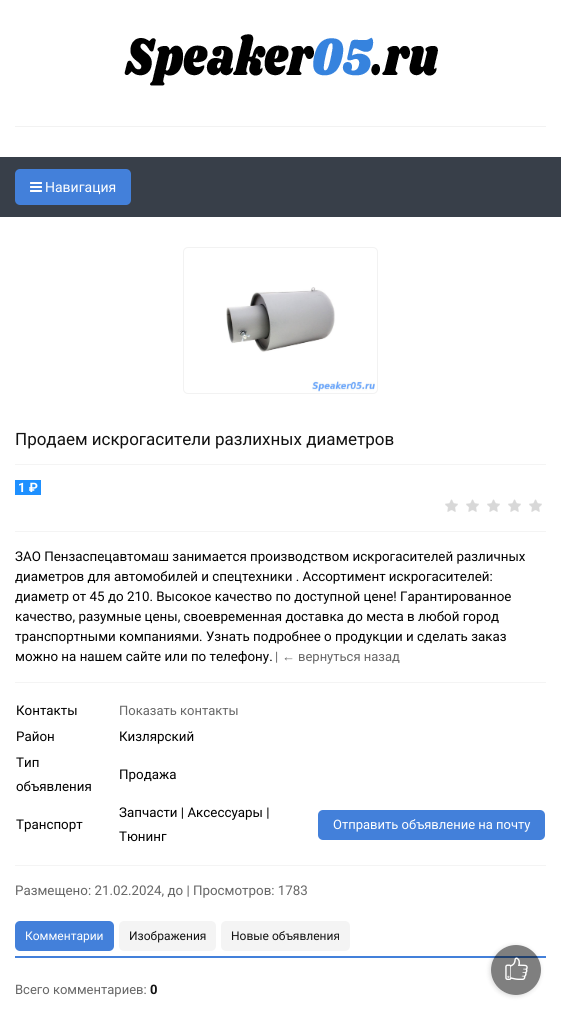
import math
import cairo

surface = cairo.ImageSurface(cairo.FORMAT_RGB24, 561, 1020)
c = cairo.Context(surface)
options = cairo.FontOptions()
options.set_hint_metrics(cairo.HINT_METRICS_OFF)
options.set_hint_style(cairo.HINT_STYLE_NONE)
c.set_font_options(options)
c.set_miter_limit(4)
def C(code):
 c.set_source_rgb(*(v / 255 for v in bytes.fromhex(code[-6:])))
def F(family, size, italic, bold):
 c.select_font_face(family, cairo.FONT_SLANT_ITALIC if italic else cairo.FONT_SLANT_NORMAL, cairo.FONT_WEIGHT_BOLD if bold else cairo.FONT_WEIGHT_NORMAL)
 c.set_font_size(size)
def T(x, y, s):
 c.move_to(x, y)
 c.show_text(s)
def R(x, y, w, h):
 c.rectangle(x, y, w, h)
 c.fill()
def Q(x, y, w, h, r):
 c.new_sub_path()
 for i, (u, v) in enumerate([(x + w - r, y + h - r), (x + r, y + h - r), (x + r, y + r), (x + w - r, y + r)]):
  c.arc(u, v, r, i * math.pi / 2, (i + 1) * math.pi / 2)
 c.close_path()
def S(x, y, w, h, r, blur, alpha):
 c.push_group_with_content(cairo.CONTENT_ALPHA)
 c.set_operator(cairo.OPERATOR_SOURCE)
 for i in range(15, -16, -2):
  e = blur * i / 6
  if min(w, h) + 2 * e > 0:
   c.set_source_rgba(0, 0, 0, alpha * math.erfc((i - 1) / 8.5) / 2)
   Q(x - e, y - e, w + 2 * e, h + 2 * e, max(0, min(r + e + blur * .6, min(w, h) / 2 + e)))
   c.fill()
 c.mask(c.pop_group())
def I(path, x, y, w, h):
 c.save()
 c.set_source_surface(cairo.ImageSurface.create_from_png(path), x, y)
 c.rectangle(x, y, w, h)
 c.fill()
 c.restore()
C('ffffff')
c.paint()
C('f2f2f2')
R(15,126,531,1)
I('1.png',124,34,314,52)
C('383f49')
R(0,157,561,60)
C('4380da')
Q(15,169,116,36,5)
c.fill()
I('2.png',30,182,12,10)
F('Roboto',14,0,0)
C('ffffff')
T(45,192,'Навигация')
C('4380da')
R(15,956,531,2)
c.save()
c.set_fill_rule(cairo.FILL_RULE_EVEN_ODD)
c.new_path()
c.move_to(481,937)
c.line_to(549,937)
c.line_to(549,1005)
c.line_to(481,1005)
c.close_path()
c.move_to(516,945)
c.curve_to(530,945,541,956,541,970)
c.curve_to(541,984,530,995,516,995)
c.curve_to(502,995,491,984,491,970)
c.curve_to(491,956,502,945,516,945)
c.close_path()
c.clip()
C('000000')
S(490,946,50,50,25,2.5,.15)
c.restore()
c.set_source_rgba(0,0,0,0.5)
c.arc(516,970,25,0,2 * math.pi)
c.fill()
I('3.png',505,957,23,23)
Q(183.5,247.5,194,146,4.5)
C('f2f2f2')
c.set_line_width(1)
c.stroke()
I('4.png',226,287,149,105)
C('f4f4f4')
R(15,464,531,1)
F('Roboto',17,0,0)
C('121212')
T(15,445,'Продаем искрогасители разлихных диаметров')
C('f4f4f4')
R(15,531,531,1)
C('1e90ff')
R(15,480,26,15)
F('Roboto',13,0,1)
C('ffffff')
T(18,492,'1 ₽')
I('5.png',445,499,97,13)
C('f4f4f4')
R(15,682,531,1)
F('Roboto',13.35,0,0)
C('000000')
T(15,561,'ЗАО Пензаспецавтомаш занимается производством искрогасителей различных')
T(15,581,'диаметров для автомобилей и спецтехники . Ассортимент искрогаcителей:')
T(15,601,'диаметр от 45 до 210. Высокое качество по доступной цене! Гарантированное')
T(15,621,'качество, разумные цены, своевременная доставка до места в любой город')
T(15,641,'транспортными компаниями. Узнать подробнее о продукции и сделать заказ')
T(15,661,'можно на нашем сайте или по телефону.')
F('Roboto',13,0,0)
C('666666')
T(275,661,'|')
F('Liberation Serif',13,0,0)
T(282,661,'←')
F('Roboto',13,0,0)
T(298,661,'вернуться назад')
C('f4f4f4')
R(15,865,531,1)
F('Roboto',13.35,0,0)
C('000000')
T(16,715,'Контакты')
F('Roboto',13,0,0)
C('666666')
T(119,715,'Показать контакты')
F('Roboto',13.35,0,0)
C('000000')
T(16,741,'Район')
T(119,741,'Кизлярский')
T(16,767,'Тип')
T(16,791,'объявления')
T(119,779,'Продажа')
T(16,829,'Транспорт')
T(119,817,'Запчасти | Аксессуары |')
T(119,841,'Тюнинг')
C('4380da')
Q(318,810,227,30,5)
c.fill()
F('Roboto',13,0,0)
C('ffffff')
T(333,829,'Отправить объявление на почту')
F('Roboto',13.35,0,0)
C('666666')
T(15,895,'Размещено: 21.02.2024, до | Просмотров: 1783')
C('4380da')
Q(15,921,99,30,5)
c.fill()
F('Roboto',12,0,0)
C('ffffff')
T(25,940,'Комментарии')
C('f4f4f4')
Q(119,921,97,30,5)
c.fill()
C('121212')
T(129,940,'Изображения')
C('f4f4f4')
Q(221,921,129,30,5)
c.fill()
C('121212')
T(231,940,'Новые объявления')
F('Roboto',13,0,0)
C('666666')
T(15,994,'Всего комментариев:')
F('Roboto',13,0,1)
C('121212')
T(150,994,'0')
surface.write_to_png('o.png')
